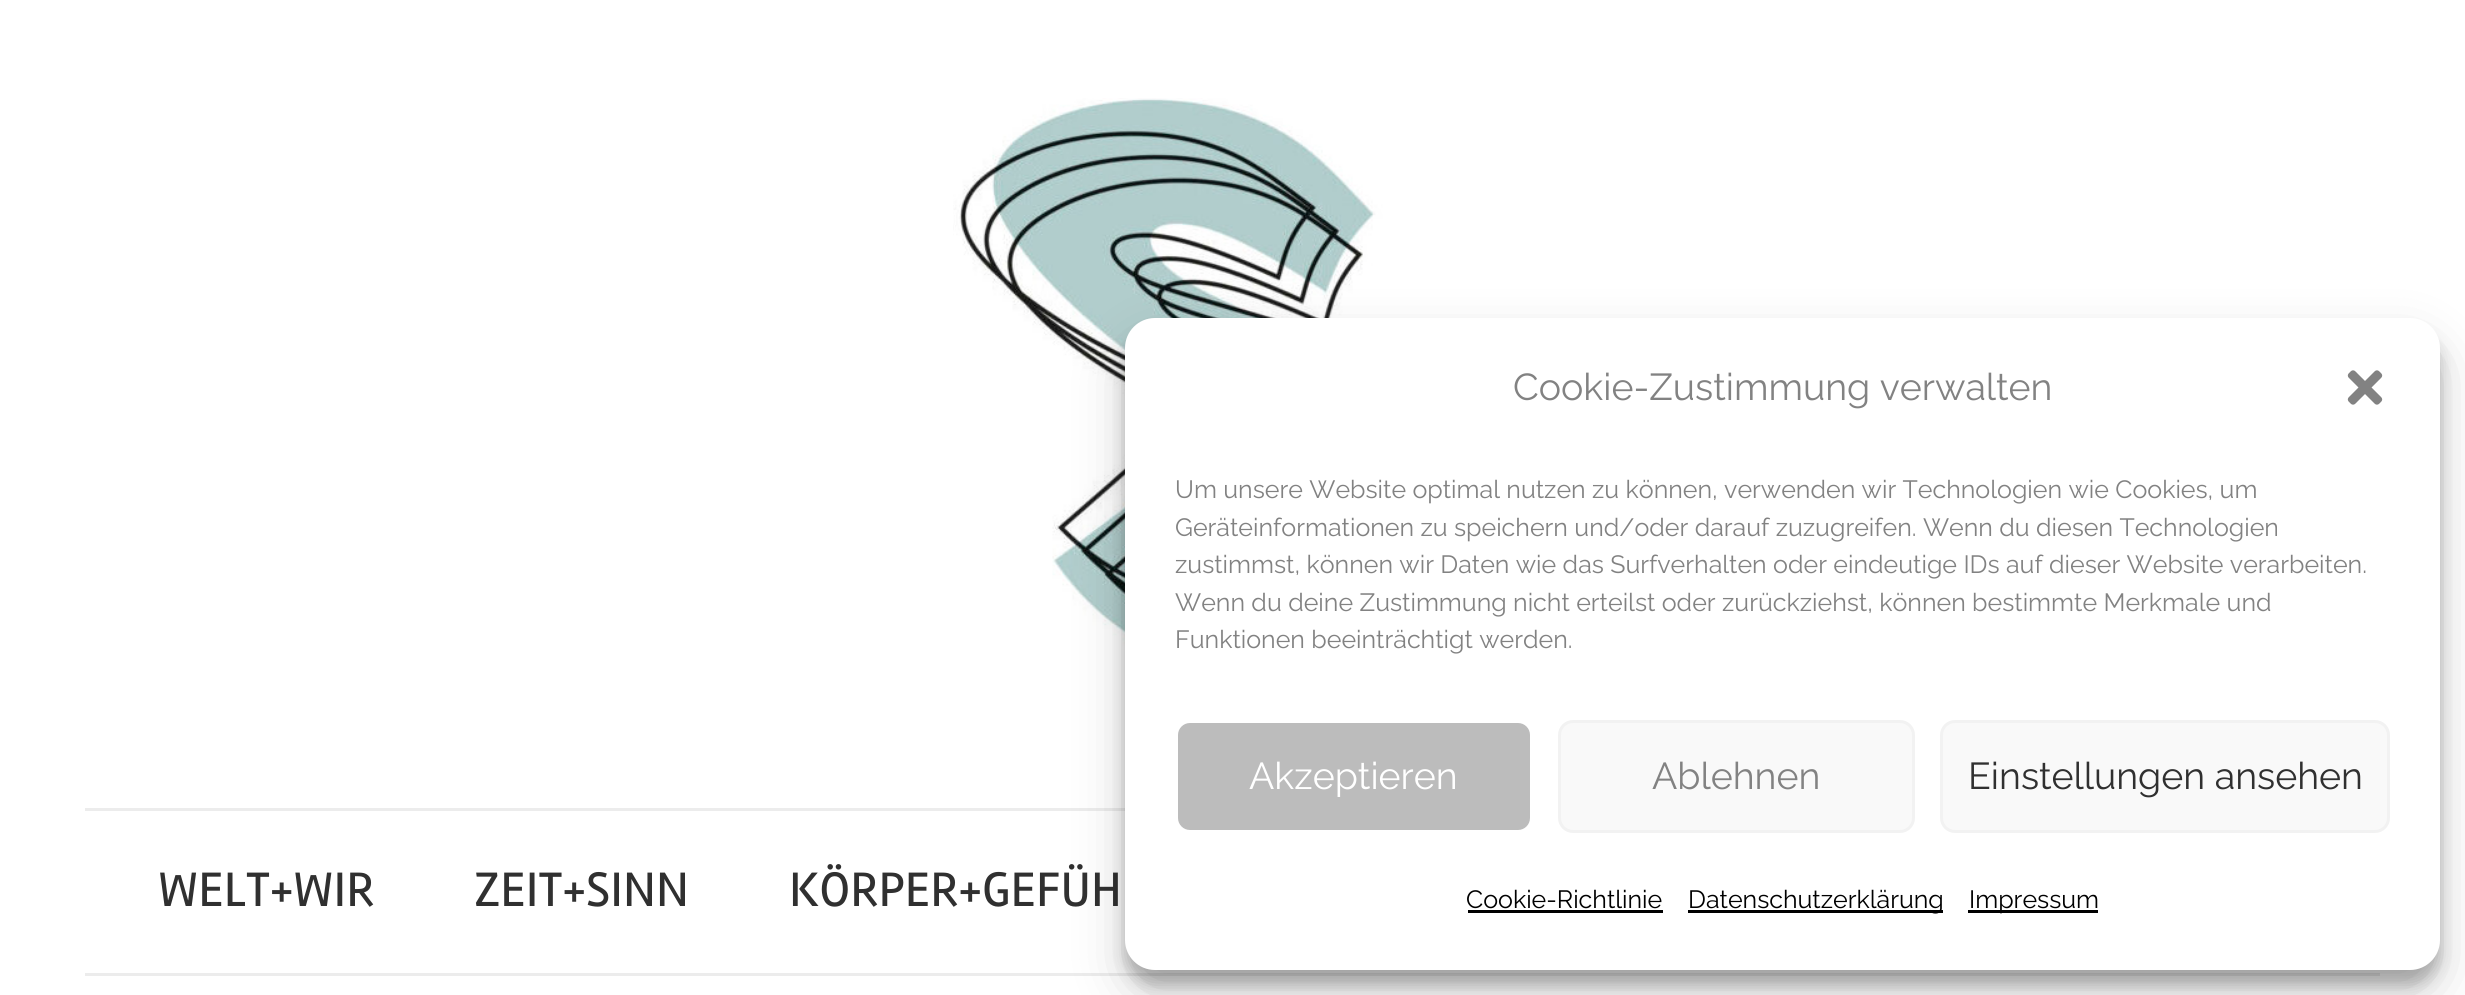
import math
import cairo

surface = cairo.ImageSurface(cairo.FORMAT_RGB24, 2465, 995)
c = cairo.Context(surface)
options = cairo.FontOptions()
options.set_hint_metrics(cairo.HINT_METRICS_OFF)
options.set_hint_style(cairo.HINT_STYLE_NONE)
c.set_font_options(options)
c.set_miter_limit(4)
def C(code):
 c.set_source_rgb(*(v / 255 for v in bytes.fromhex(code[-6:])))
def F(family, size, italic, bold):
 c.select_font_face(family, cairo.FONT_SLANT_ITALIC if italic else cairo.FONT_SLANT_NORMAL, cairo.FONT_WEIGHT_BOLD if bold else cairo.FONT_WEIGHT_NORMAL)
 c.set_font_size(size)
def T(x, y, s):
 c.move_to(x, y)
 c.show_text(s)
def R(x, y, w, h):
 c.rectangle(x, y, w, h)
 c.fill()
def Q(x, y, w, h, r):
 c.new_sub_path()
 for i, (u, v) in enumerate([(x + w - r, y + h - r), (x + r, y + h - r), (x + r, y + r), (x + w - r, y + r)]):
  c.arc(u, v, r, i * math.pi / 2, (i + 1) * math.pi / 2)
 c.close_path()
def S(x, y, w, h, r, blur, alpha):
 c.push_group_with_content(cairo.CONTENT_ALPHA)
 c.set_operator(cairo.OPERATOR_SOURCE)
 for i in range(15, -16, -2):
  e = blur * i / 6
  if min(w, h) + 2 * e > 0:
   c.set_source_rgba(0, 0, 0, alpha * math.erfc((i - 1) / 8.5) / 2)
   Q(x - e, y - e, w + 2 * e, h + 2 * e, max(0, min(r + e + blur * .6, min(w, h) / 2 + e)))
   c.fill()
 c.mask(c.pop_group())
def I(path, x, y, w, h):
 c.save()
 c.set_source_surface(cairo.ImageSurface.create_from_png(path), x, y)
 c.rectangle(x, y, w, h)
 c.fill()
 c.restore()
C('ffffff')
c.paint()
C('ececec')
R(85,973,2295,3)
I('1.png',953,98,551,587)
R(85,808,1040,3)
F('Rambla',50,0,0)
C('303030')
T(158,906,'WELT+WIR')
T(474,906,'ZEIT+SINN')
T(789,906,'KÖRPER+GEFÜH')
C('000000')
S(1125,333,1315,652,30,7.5,.23)
S(1125,343,1315,652,30,25,.19)
C('ffffff')
Q(1125,318,1315,652,30)
c.fill()
F('Raleway',37.5,0,0)
C('828282')
T(1513,400,'Cookie-Zustimmung verwalten')
I('2.png',2347,370,36,35)
F('Raleway',25,0,0)
T(1175,498,'Um unsere Website optimal nutzen zu können, verwenden wir Technologien wie Cookies, um')
T(1175,536,'Geräteinformationen zu speichern und/oder darauf zuzugreifen. Wenn du diesen Technologien')
T(1175,573,'zustimmst, können wir Daten wie das Surfverhalten oder eindeutige IDs auf dieser Website verarbeiten.')
T(1175,611,'Wenn du deine Zustimmung nicht erteilst oder zurückziehst, können bestimmte Merkmale und')
T(1175,648,'Funktionen beeinträchtigt werden.')
C('bcbcbc')
Q(1176.5,721.5,355,110,13.5)
c.fill_preserve()
C('ffffff')
c.set_line_width(3)
c.stroke()
F('Raleway',37.5,0,0)
T(1249,789,'Akzeptieren')
C('f9f9f9')
Q(1559.5,721.5,354,110,13.5)
c.fill_preserve()
C('f2f2f2')
c.stroke()
C('828282')
T(1652,789,'Ablehnen')
C('f9f9f9')
Q(1941.5,721.5,447,110,13.5)
c.fill_preserve()
C('f2f2f2')
c.stroke()
C('303030')
T(1968,789,'Einstellungen ansehen')
F('Raleway',25,0,0)
C('000000')
T(1466,908,'Cookie-Richtlinie')
R(1468,910,195,3)
R(1688,910,255,3)
T(1688,908,'Datenschutzerklärung')
R(1968,910,130,3)
T(1969,908,'Impressum')
surface.write_to_png('o.png')
